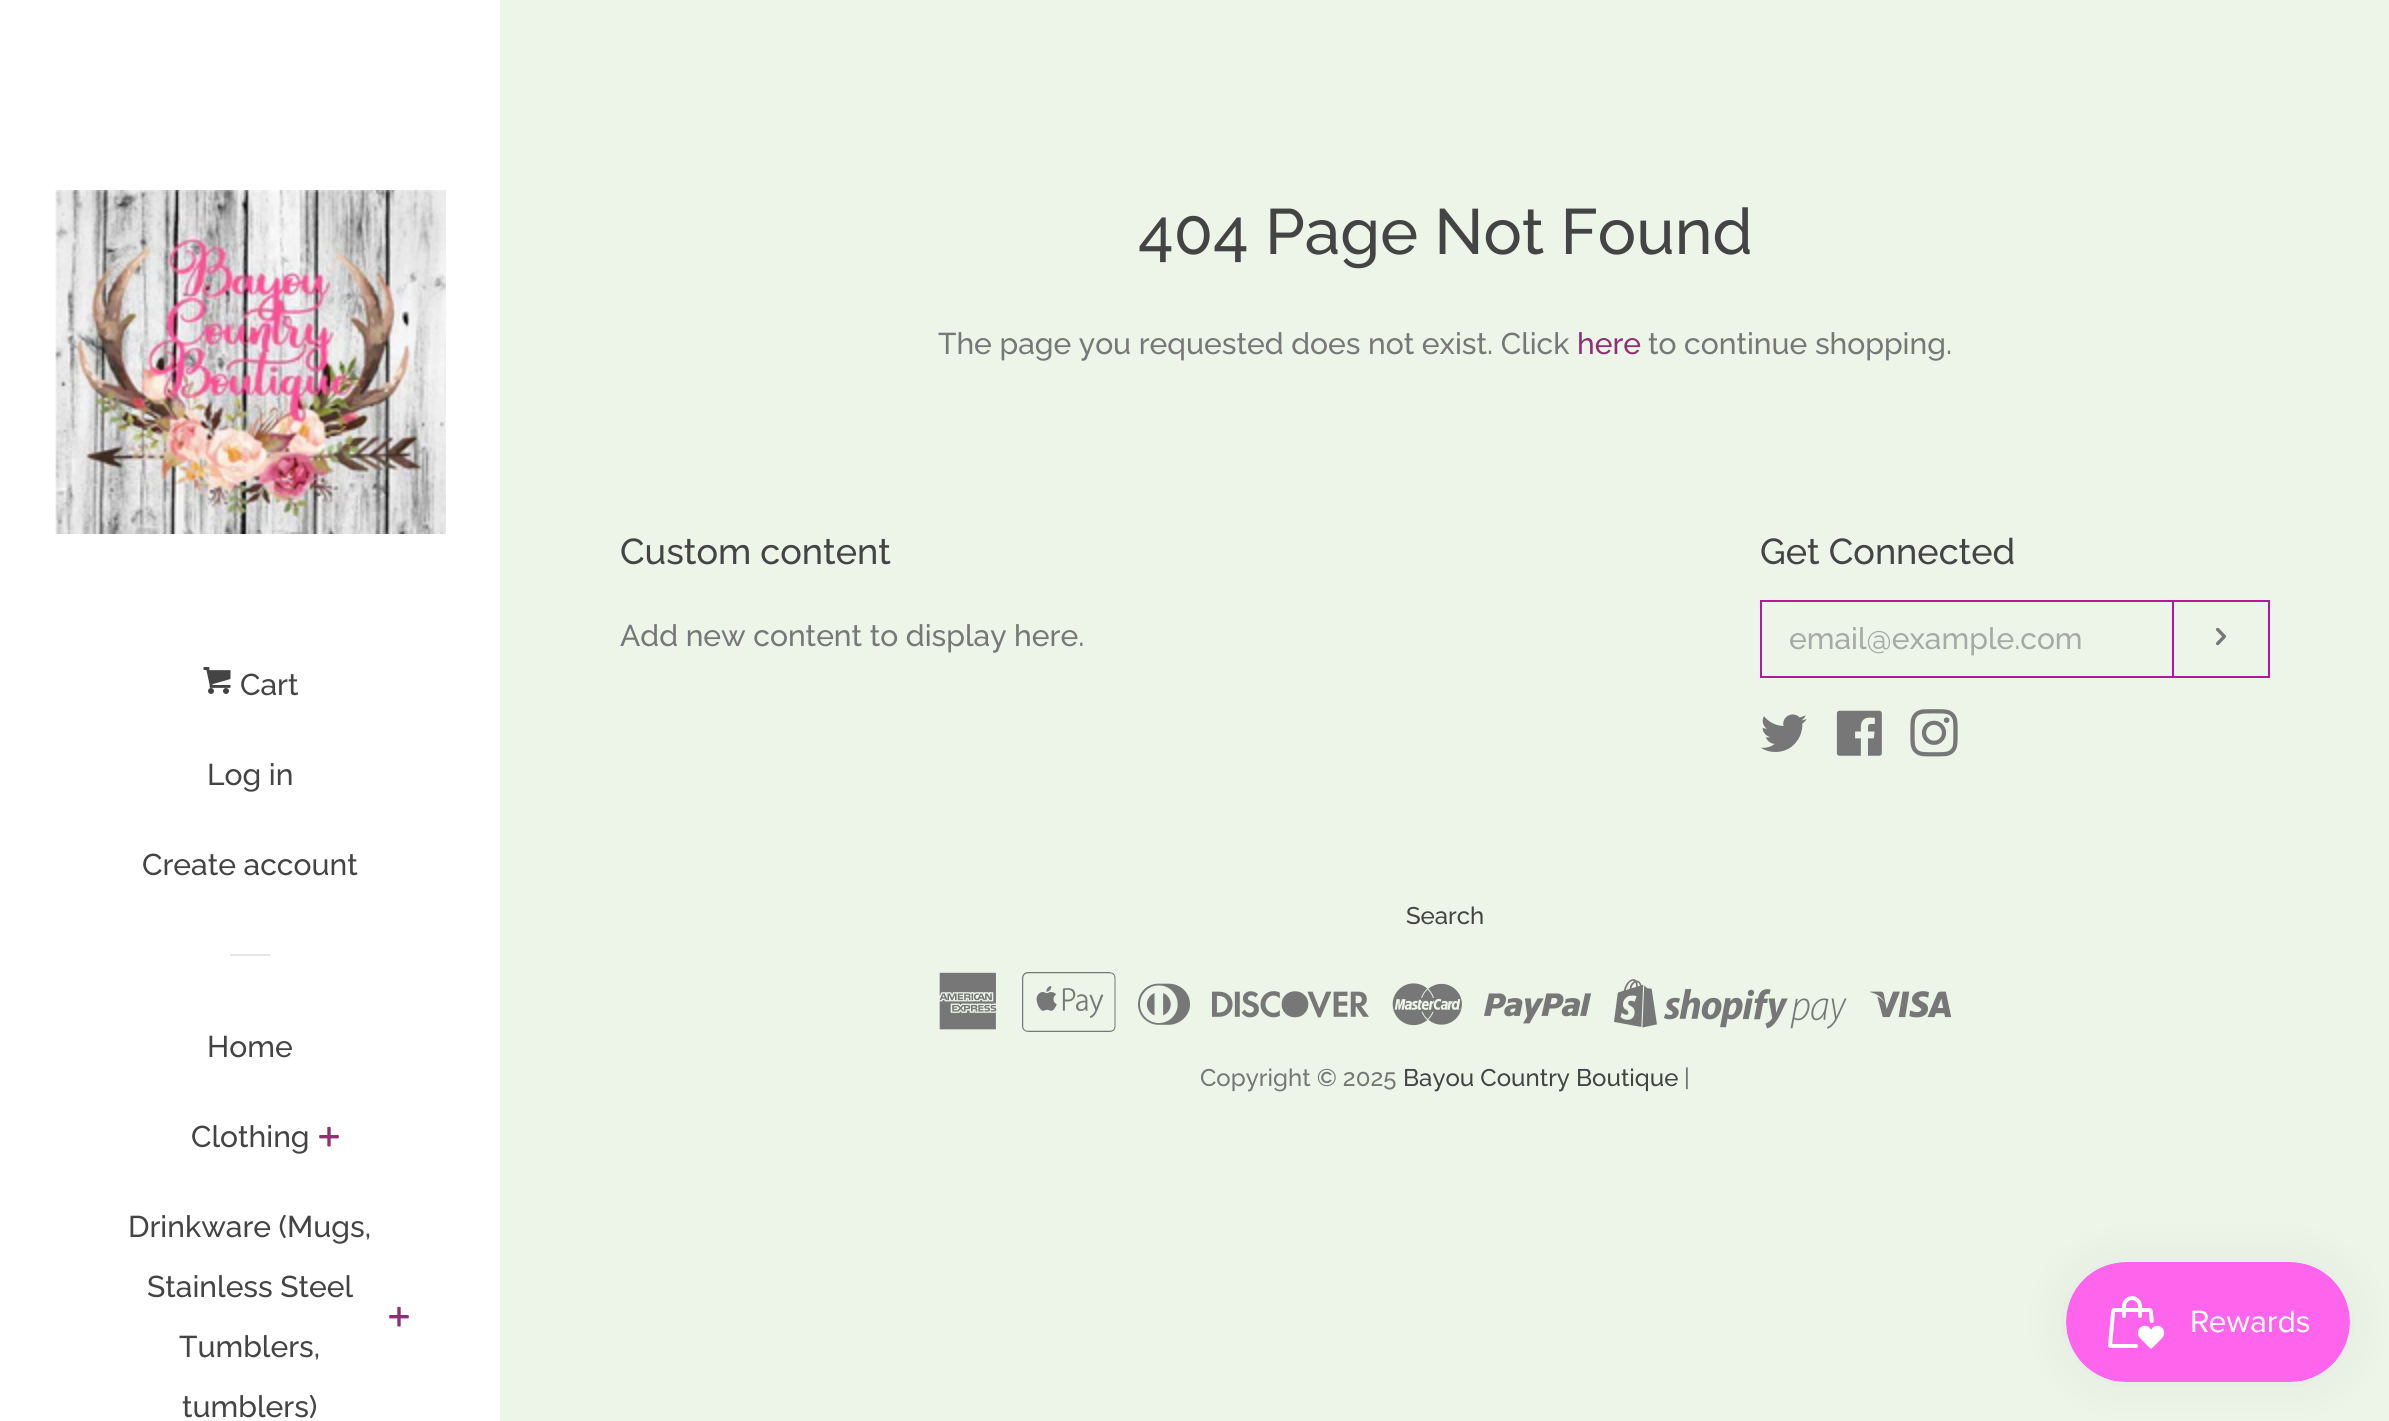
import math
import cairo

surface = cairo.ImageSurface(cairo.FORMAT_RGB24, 2389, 1421)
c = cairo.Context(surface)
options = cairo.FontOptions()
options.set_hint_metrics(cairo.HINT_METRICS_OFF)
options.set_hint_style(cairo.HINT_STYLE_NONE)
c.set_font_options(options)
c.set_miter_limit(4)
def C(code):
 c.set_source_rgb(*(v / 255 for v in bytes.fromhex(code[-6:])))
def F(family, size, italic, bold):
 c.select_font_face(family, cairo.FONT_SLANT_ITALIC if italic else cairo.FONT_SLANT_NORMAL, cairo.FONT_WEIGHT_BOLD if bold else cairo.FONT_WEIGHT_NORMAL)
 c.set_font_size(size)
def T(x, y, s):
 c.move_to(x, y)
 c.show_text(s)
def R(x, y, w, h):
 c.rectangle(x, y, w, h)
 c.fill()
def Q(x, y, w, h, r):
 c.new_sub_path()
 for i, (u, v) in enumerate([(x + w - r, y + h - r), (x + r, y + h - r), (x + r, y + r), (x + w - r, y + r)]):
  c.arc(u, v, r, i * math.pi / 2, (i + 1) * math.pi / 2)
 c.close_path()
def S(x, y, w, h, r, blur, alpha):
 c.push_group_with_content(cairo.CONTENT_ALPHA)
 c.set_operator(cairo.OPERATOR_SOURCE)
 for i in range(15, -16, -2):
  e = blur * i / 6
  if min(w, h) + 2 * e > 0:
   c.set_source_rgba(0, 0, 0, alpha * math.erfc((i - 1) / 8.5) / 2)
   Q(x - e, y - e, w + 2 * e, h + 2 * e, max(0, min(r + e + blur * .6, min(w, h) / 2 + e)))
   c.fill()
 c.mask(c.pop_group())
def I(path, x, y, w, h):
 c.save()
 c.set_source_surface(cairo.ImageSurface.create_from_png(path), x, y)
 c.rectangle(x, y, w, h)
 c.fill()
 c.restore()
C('ffffff')
c.paint()
I('1.png',55,190,391,344)
I('2.png',203,667,28,27)
F('Raleway Medium',30,0,0)
C('444444')
T(240,695,'Cart')
T(207,785,'Log in')
T(142,875,'Create account')
C('e6e6e6')
R(230,954,40,2)
C('444444')
T(207,1057,'Home')
T(191,1147,'Clothing')
I('3.png',319,1126,20,21)
T(128,1237,'Drinkware (Mugs,')
T(147,1297,'Stainless Steel')
T(179,1357,'Tumblers,')
T(182,1417,'tumblers)')
I('3.png',389,1306,20,21)
C('edf5e9')
R(500,0,1889,1421)
F('Raleway Medium',64,0,0)
C('444444')
T(1138,254,'404 Page Not Found')
F('Raleway Medium',30,0,0)
C('777777')
T(938,354,'The page you requested does not exist. Click')
C('8e3075')
T(1577,354,'here')
C('777777')
T(1648,354,'to continue shopping.')
F('Raleway Medium',36,0,0)
C('444444')
T(620,564,'Custom content')
F('Raleway Medium',30,0,0)
C('777777')
T(620,646,'Add new content to display here.')
F('Raleway Medium',36,0,0)
C('444444')
T(1760,564,'Get Connected')
c.rectangle(1761,601,508,76)
C('b7169f')
c.stroke()
R(2172,602,2,74)
F('Raleway Medium',30,0,0)
C('a6a9a5')
T(1789,649,'email@example.com')
I('4.png',2215,627,12,19)
I('5.png',1761,714,46,38)
I('6.png',1836,710,46,46)
I('7.png',1910,709,48,48)
F('Raleway Medium',24,0,0)
C('444444')
T(1406,924,'Search')
I('8.png',939,972,58,58)
I('9.png',1022,972,94,60)
I('10.png',1138,983,52,42)
I('11.png',1212,991,157,27)
I('12.png',1392,983,70,43)
I('13.png',1484,993,107,31)
I('14.png',1614,979,233,50)
I('15.png',1870,991,82,27)
C('777777')
T(1200,1086,'Copyright © 2025')
C('444444')
T(1403,1086,'Bayou Country Boutique')
C('777777')
T(1684,1086,'|')
C('000000')
S(2066,1262,284,120,60,25,.05)
I('16.png',2066,1262,284,120)
surface.write_to_png('o.png')
